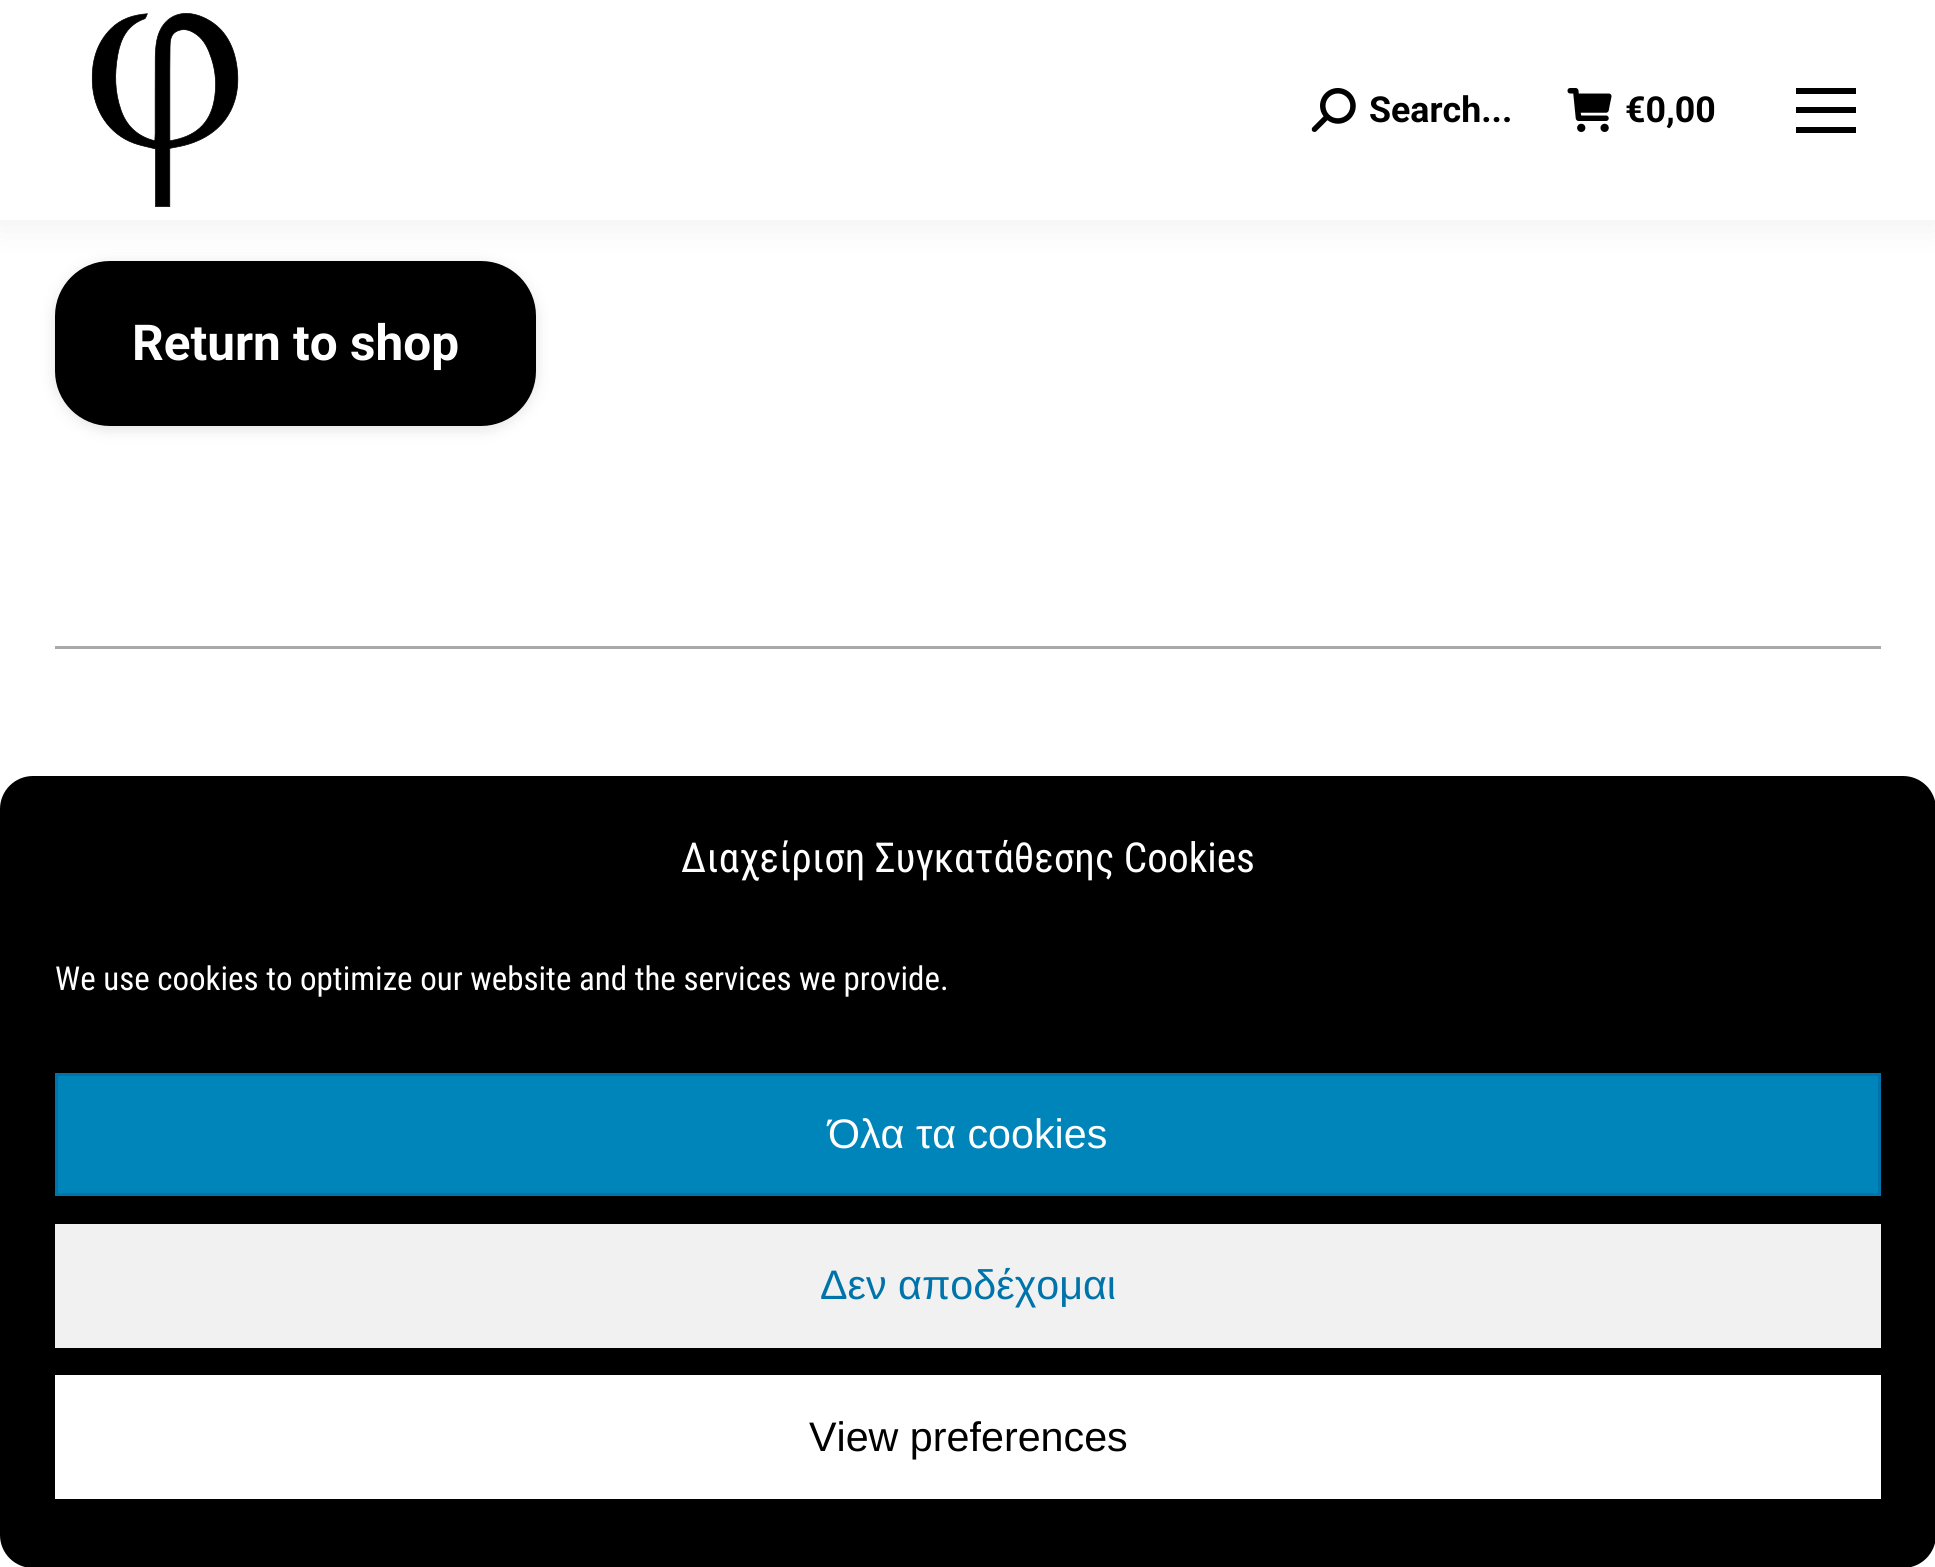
import math
import cairo

surface = cairo.ImageSurface(cairo.FORMAT_RGB24, 1935, 1567)
c = cairo.Context(surface)
options = cairo.FontOptions()
options.set_hint_metrics(cairo.HINT_METRICS_OFF)
options.set_hint_style(cairo.HINT_STYLE_NONE)
c.set_font_options(options)
c.set_miter_limit(4)
def C(code):
 c.set_source_rgb(*(v / 255 for v in bytes.fromhex(code[-6:])))
def F(family, size, italic, bold):
 c.select_font_face(family, cairo.FONT_SLANT_ITALIC if italic else cairo.FONT_SLANT_NORMAL, cairo.FONT_WEIGHT_BOLD if bold else cairo.FONT_WEIGHT_NORMAL)
 c.set_font_size(size)
def T(x, y, s):
 c.move_to(x, y)
 c.show_text(s)
def R(x, y, w, h):
 c.rectangle(x, y, w, h)
 c.fill()
def Q(x, y, w, h, r):
 c.new_sub_path()
 for i, (u, v) in enumerate([(x + w - r, y + h - r), (x + r, y + h - r), (x + r, y + r), (x + w - r, y + r)]):
  c.arc(u, v, r, i * math.pi / 2, (i + 1) * math.pi / 2)
 c.close_path()
def S(x, y, w, h, r, blur, alpha):
 c.push_group_with_content(cairo.CONTENT_ALPHA)
 c.set_operator(cairo.OPERATOR_SOURCE)
 for i in range(15, -16, -2):
  e = blur * i / 6
  if min(w, h) + 2 * e > 0:
   c.set_source_rgba(0, 0, 0, alpha * math.erfc((i - 1) / 8.5) / 2)
   Q(x - e, y - e, w + 2 * e, h + 2 * e, max(0, min(r + e + blur * .6, min(w, h) / 2 + e)))
   c.fill()
 c.mask(c.pop_group())
def I(path, x, y, w, h):
 c.save()
 c.set_source_surface(cairo.ImageSurface.create_from_png(path), x, y)
 c.rectangle(x, y, w, h)
 c.fill()
 c.restore()
C('ffffff')
c.paint()
C('000000')
S(55,264,481,165,55,8,.12)
C('000000')
Q(60.5,266.5,470,154,49.5)
c.fill_preserve()
c.set_line_width(11)
c.stroke()
C('000000')
S(-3,-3,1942,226,0,20.5,.07)
C('ffffff')
R(0,0,1935,220)
I('1.png',91,13,148,194)
I('2.png',1311,88,45,44)
F('Roboto',35.75,0,1)
C('000000')
T(1369,122,'Search...')
I('3.png',1567,88,45,44)
T(1625,122,'€0,00')
R(1796,88,60,6)
R(1796,107,60,6)
R(1796,127,60,6)
F('Roboto',49.5,0,1)
C('ffffff')
T(132,360,'Return to shop')
C('a9a9a9')
R(55,646,1826,3)
C('000000')
Q(0,776,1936,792,33)
c.fill()
F('Roboto Condensed',41.25,0,0)
C('ffffff')
T(681,872,'Διαχείριση Συγκατάθεσης Cookies')
F('Roboto Condensed',33,0,0)
T(55,990,'We use cookies to optimize our website and the services we provide.')
C('0085ba')
c.rectangle(56.5,1074.5,1823,120)
c.fill_preserve()
C('0073aa')
c.set_line_width(3)
c.stroke()
F('Liberation Sans',41.25,0,0)
C('ffffff')
T(828,1148,'Όλα τα cookies')
C('f1f1f1')
R(55,1224,1826,124)
C('0073aa')
T(820,1299,'Δεν αποδέχομαι')
C('ffffff')
R(55,1375,1826,124)
C('000000')
T(809,1451,'View preferences')
surface.write_to_png('o.png')
